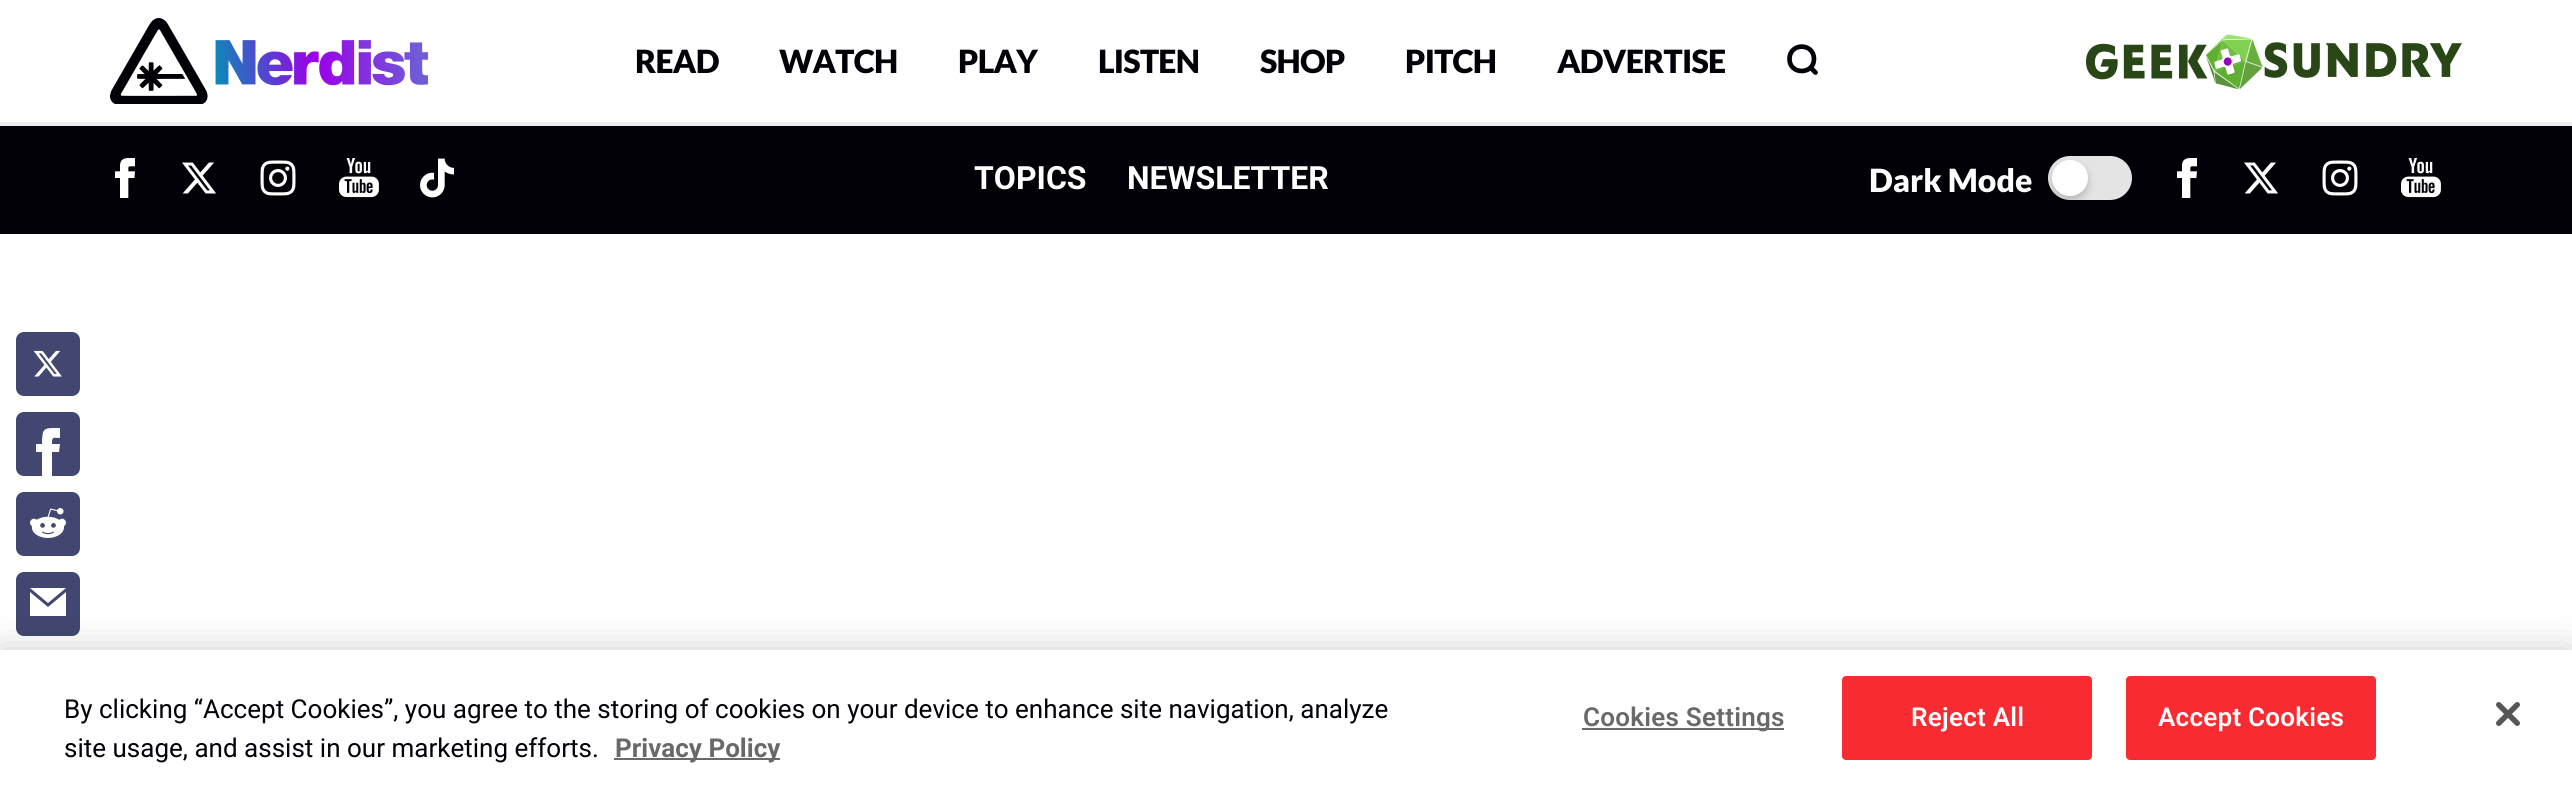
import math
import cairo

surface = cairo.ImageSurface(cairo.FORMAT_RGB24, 2572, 787)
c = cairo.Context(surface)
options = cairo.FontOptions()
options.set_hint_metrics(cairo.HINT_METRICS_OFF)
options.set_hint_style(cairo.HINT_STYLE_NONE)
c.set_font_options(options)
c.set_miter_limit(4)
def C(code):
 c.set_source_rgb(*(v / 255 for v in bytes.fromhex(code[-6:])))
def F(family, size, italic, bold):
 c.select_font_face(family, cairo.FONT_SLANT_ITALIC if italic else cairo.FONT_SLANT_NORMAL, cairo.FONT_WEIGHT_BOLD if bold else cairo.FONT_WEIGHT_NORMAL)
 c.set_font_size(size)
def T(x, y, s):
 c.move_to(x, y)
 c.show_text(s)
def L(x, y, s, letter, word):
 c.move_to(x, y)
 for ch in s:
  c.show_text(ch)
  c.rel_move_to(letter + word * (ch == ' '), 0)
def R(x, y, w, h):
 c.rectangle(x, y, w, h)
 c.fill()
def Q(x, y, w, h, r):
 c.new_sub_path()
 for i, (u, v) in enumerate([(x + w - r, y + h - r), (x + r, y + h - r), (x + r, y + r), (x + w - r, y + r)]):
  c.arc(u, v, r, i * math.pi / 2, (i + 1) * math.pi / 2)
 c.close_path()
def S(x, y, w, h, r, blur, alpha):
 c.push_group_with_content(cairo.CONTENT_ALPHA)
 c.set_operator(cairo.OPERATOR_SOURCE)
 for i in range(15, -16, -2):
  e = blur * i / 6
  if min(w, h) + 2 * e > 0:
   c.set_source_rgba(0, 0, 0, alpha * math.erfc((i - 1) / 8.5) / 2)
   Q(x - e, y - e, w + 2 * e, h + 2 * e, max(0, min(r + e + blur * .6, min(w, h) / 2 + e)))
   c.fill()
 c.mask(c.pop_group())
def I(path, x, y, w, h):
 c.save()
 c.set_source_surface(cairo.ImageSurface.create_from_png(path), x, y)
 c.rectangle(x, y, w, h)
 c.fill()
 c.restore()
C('ffffff')
c.paint()
C('eeeeee')
R(0,122,2572,4)
I('1.png',110,18,318,86)
F('Lato Black',32,0,0)
C('000006')
L(635,73,'READ',-.75,0)
L(779,73,'WATCH',-.75,0)
L(958,73,'PLAY',-.75,0)
L(1098,73,'LISTEN',-.75,0)
L(1260,73,'SHOP',-.75,0)
L(1405,73,'PITCH',-.75,0)
L(1557,73,'ADVERTISE',-.75,0)
c.new_path()
c.move_to(1814,59)
c.curve_to(1814,75,1789.5,75,1789.5,59)
c.curve_to(1789.5,42.5,1814,42.5,1814,59)
c.close_path()
c.move_to(1815.5,72.5)
c.line_to(1810.5,67.5)
c.set_line_width(4.7)
c.set_line_cap(cairo.LINE_CAP_ROUND)
c.set_line_join(cairo.LINE_JOIN_ROUND)
c.stroke()
I('2.png',2086,34,376,56)
R(0,126,2572,108)
I('3.png',115,158,20,40)
I('4.png',182,162,34,32)
I('5.png',260,160,36,36)
I('6.png',339,158,40,40)
I('7.png',420,158,34,40)
F('Roboto',32,0,1)
C('ffffff')
T(974,189,'TOPICS')
T(1127,189,'NEWSLETTER')
F('Lato Black',32,0,0)
T(1869,192,'Dark Mode')
C('e4e4e4')
Q(2048,156,84,44,22)
c.fill()
C('000000')
S(2052,164,36,36,18,4,.2)
C('ffffff')
c.arc(2070,178,18,0,2 * math.pi)
c.fill()
I('3.png',2177,158,20,40)
I('4.png',2244,162,34,32)
I('5.png',2322,160,36,36)
I('6.png',2401,158,40,40)
C('414770')
Q(16,332,64,64,8)
c.fill()
I('8.png',33,350,29,27)
Q(16,412,64,64,8)
c.fill()
C('ffffff')
c.new_path()
c.move_to(42,444)
c.line_to(36,444)
c.line_to(36,452)
c.line_to(42,452)
c.line_to(42,476)
c.line_to(52,476)
c.line_to(52,452)
c.line_to(59,452)
c.line_to(60,444)
c.line_to(52,444)
c.curve_to(52,436,53,438,60,438)
c.line_to(60,428)
c.curve_to(44,428,42,427,42,444)
c.close_path()
c.fill()
C('414770')
Q(16,492,64,64,8)
c.fill()
I('9.png',30,508,36,30)
Q(16,572,64,64,8)
c.fill()
C('ffffff')
c.new_path()
c.move_to(48,603)
c.line_to(30,588)
c.line_to(66,588)
c.close_path()
c.move_to(48,607)
c.line_to(30,592)
c.line_to(30,616)
c.line_to(66,616)
c.line_to(66,592)
c.close_path()
c.fill()
C('000000')
S(0,650,2572,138,0,18,.2)
C('ffffff')
R(0,650,2572,137)
F('Roboto',26.02,0,0)
C('000006')
T(64,718,'By clicking “Accept Cookies”, you agree to the storing of cookies on your device to enhance site navigation, analyze')
T(64,757,'site usage, and assist in our marketing efforts.')
C('696969')
R(614,758,166,2)
F('Roboto',26.02,0,1)
T(615,757,'Privacy Policy')
R(1582,728,202,2)
F('Roboto SemiBold',26.02,0,0)
L(1583,726,'Cookies Settings',.25,0)
C('f72b31')
Q(1843,677,248,82,3)
c.fill_preserve()
c.set_line_width(2)
c.set_line_cap(cairo.LINE_CAP_BUTT)
c.set_line_join(cairo.LINE_JOIN_MITER)
c.stroke()
C('ffffff')
L(1911,726,'Reject All',.25,0)
C('f72b31')
Q(2127,677,248,82,3)
c.fill_preserve()
c.stroke()
C('ffffff')
L(2158,726,'Accept Cookies',.25,0)
I('10.png',2496,702,24,24)
surface.write_to_png('o.png')
